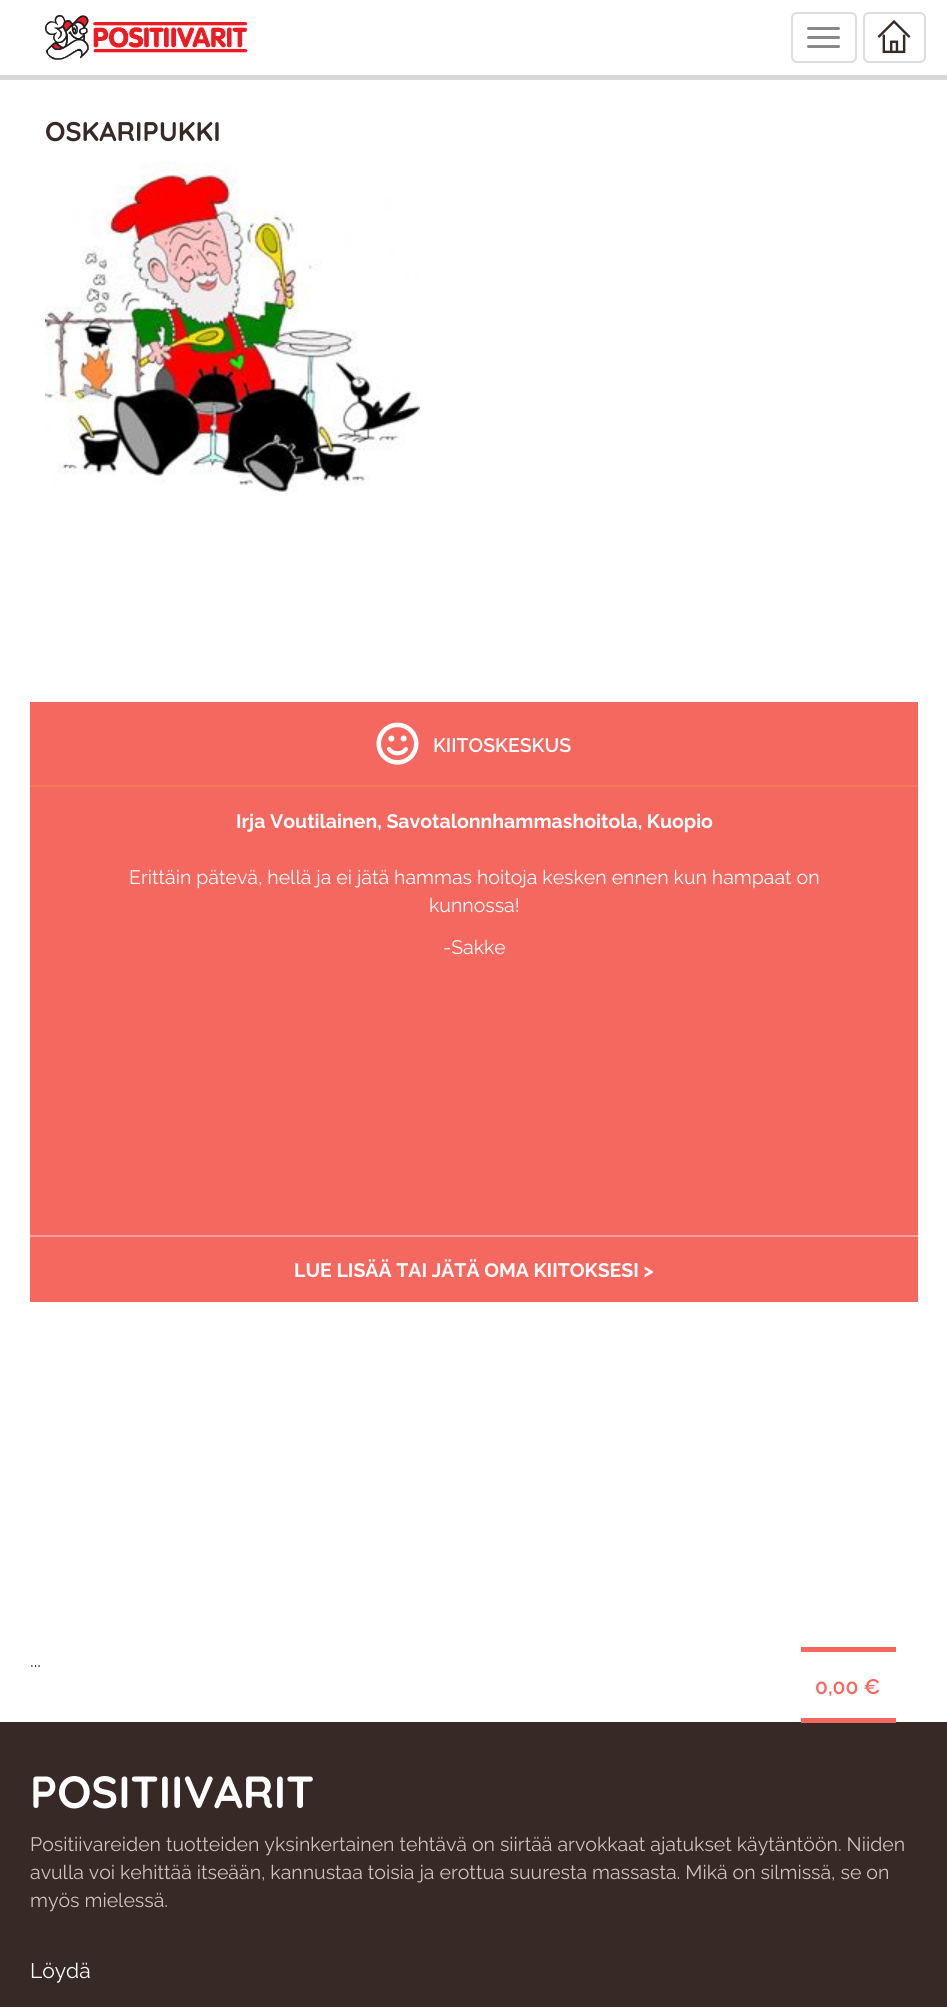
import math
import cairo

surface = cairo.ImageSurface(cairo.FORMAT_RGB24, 947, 2007)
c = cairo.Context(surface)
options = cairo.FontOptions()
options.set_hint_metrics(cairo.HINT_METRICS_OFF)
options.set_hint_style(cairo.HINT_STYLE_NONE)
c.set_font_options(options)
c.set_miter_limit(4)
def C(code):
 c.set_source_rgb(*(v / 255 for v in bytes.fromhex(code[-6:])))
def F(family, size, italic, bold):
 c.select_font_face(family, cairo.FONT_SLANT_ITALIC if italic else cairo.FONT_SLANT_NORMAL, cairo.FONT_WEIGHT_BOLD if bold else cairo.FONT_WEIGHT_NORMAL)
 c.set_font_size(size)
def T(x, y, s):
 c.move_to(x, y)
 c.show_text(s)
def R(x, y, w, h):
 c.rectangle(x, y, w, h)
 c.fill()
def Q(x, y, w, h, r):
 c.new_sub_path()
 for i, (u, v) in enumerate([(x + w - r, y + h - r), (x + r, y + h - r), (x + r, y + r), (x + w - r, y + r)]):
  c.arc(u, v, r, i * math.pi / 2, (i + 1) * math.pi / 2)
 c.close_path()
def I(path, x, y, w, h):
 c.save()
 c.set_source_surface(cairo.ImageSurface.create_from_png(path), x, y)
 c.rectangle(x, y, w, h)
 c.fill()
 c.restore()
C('ffffff')
c.paint()
C('d9d8d8')
R(0,75,947,5)
I('1.png',45,15,203,45)
Q(792,13,64,49,5)
C('dddddd')
c.stroke()
C('888888')
Q(807,27,33,3,1.5)
c.fill()
Q(807,36,33,3,1.5)
c.fill()
Q(807,45,33,3,1.5)
c.fill()
Q(864,13,61,49,5)
C('dddddd')
c.stroke()
I('2.png',877,20,34,34)
F('Quicksand Light',27,0,0)
C('372926')
T(45,141,'OSKARIPUKKI')
I('3.png',45,162,375,330)
C('f56860')
R(30,702,888,600)
C('f57a53')
R(30,785,888,2)
I('4.png',376,722,43,43)
F('Raleway SemiBold',19.5,0,0)
C('ffffff')
T(433,752,'KIITOSKESKUS')
F('Raleway',19.5,0,1)
T(236,828,'Irja Voutilainen, Savotalonnhammashoitola, Kuopio')
F('Raleway',19.5,0,0)
T(129,884,'Erittäin pätevä, hellä ja ei jätä hammas hoitoja kesken ennen kun hampaat on')
T(429,912,'kunnossa!')
T(443,954,'-Sakke')
C('f2a19c')
R(30,1235,888,2)
F('Raleway',19.5,0,1)
C('ffffff')
T(294,1277,'LUE LISÄÄ TAI JÄTÄ OMA KIITOKSESI >')
F('Raleway',19.5,0,0)
C('372926')
T(30,1667,'...')
C('f56860')
R(801,1647,95,5)
C('372926')
R(0,1722,947,285)
C('f56860')
R(801,1718,95,5)
F('Raleway SemiBold',21,0,0)
T(815,1694,'0,00 €')
F('Quicksand Light',45,0,0)
C('ffffff')
T(30,1808,'POSITIIVARIT')
F('Raleway',19.5,0,0)
C('d1c2bf')
T(30,1851,'Positiivareiden tuotteiden yksinkertainen tehtävä on siirtää arvokkaat ajatukset käytäntöön. Niiden')
T(30,1879,'avulla voi kehittää itseään, kannustaa toisia ja erottua suuresta massasta. Mikä on silmissä, se on')
T(30,1907,'myös mielessä.')
F('Raleway',21,0,0)
C('ffffff')
T(30,1978,'Löydä')
surface.write_to_png('o.png')
